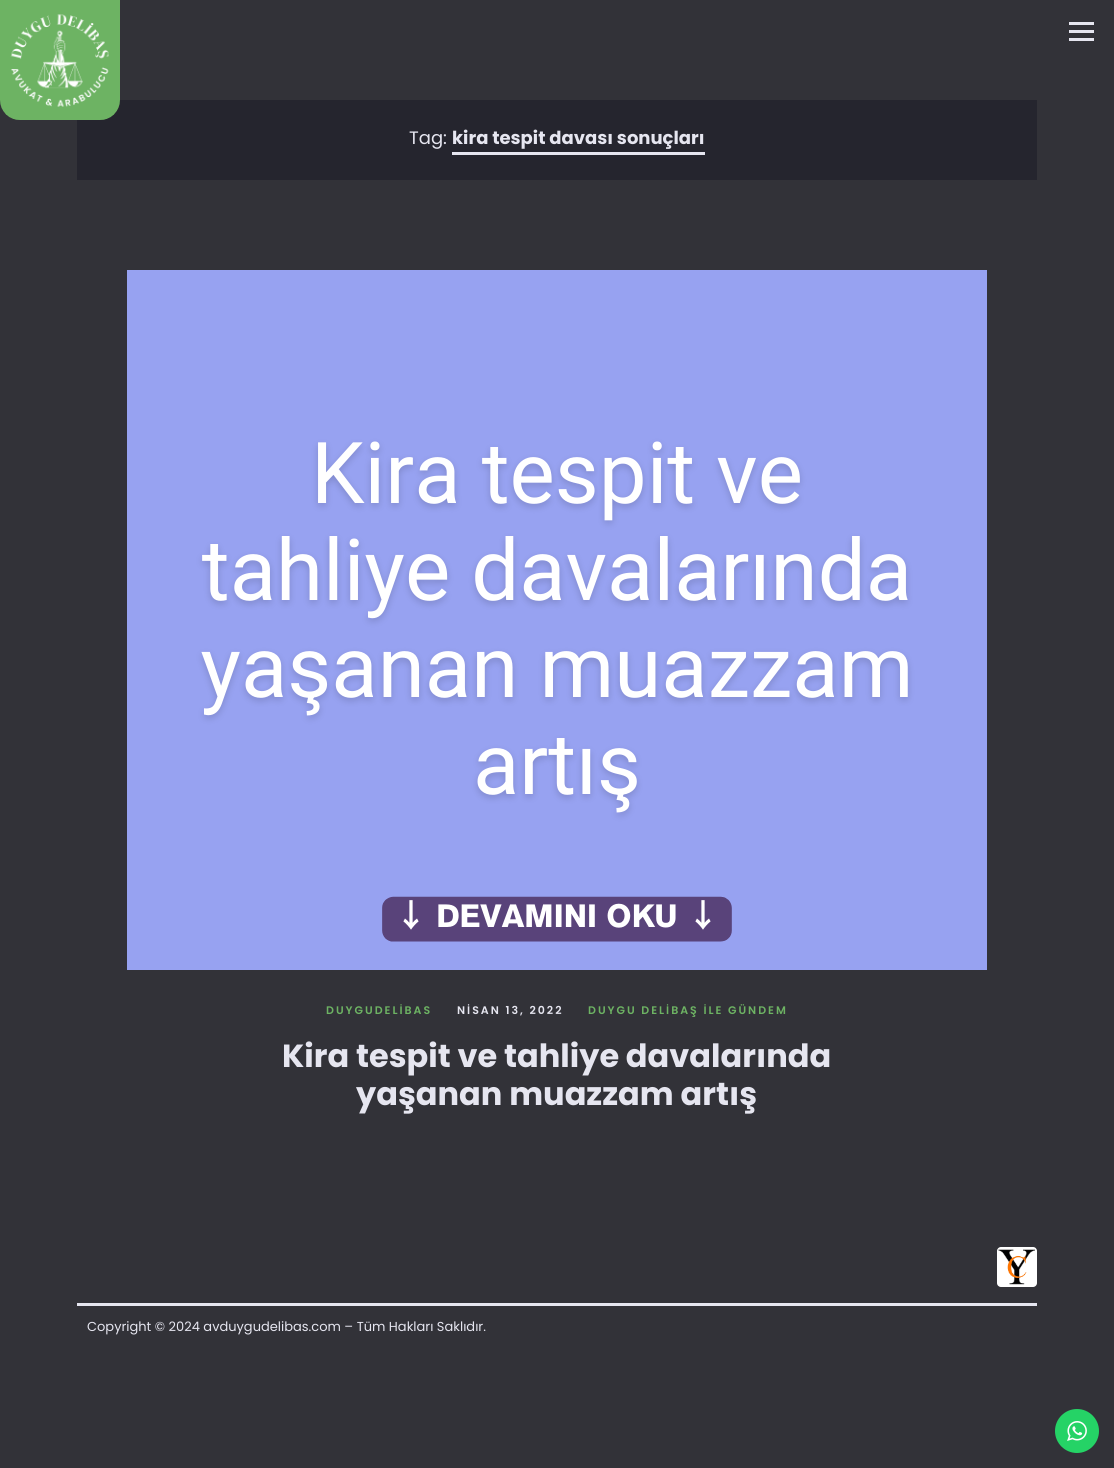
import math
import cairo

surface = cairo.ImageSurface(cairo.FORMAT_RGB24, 1114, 1468)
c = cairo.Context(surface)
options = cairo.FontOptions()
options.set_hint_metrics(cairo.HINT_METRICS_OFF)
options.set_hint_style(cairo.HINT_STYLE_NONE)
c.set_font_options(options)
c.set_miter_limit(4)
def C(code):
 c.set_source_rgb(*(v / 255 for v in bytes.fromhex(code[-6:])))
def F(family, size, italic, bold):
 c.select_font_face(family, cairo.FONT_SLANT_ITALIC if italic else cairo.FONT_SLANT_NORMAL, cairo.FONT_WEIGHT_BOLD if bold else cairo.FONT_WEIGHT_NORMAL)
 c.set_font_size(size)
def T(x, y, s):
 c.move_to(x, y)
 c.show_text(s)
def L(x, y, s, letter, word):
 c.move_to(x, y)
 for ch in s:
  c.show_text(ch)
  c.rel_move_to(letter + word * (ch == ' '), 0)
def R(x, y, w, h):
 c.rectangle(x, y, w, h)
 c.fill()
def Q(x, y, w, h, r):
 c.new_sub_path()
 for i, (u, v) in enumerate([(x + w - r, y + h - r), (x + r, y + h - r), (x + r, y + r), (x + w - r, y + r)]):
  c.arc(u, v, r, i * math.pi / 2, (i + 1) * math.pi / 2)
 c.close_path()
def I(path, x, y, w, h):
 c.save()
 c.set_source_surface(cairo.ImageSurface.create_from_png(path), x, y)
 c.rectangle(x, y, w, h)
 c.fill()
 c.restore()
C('323238')
c.paint()
C('25252e')
R(77,100,960,80)
I('1.png',0,0,120,120)
C('e6e6f0')
R(1069,22,25,3)
R(1069,30,25,3)
R(1069,38,25,3)
F('Poppins',18,0,0)
T(409,144,'Tag:')
F('Poppins',18,0,1)
T(452,144,'kira tespit davası sonuçları')
R(452,152,253,3)
I('2.png',127,270,860,700)
F('Poppins SemiBold',11,0,0)
C('6db363')
L(326,1014,'DUYGUDELİBAS',2,0)
C('e6e6f0')
L(457,1014,'NİSAN 13, 2022',2,0)
C('6db363')
L(588,1014,'DUYGU DELİBAŞ İLE GÜNDEM',2,0)
F('Poppins',32,0,1)
C('e6e6f0')
T(282,1067,'Kira tespit ve tahliye davalarında')
T(356,1105,'yaşanan muazzam artış')
C('ffffff')
Q(997,1247,40,40,4)
c.fill()
I('3.png',998,1249,37,36)
I('4.png',1007,1255,20,23)
C('e6e6f0')
R(77,1303,960,3)
F('Poppins',13,0,0)
T(87,1331,'Copyright © 2024 avduygudelibas.com – Tüm Hakları Saklıdır.')
C('25d366')
c.new_path()
c.arc(1077,1431,22,0,2 * math.pi)
c.fill()
I('5.png',1067,1421,20,20)
surface.write_to_png('o.png')
